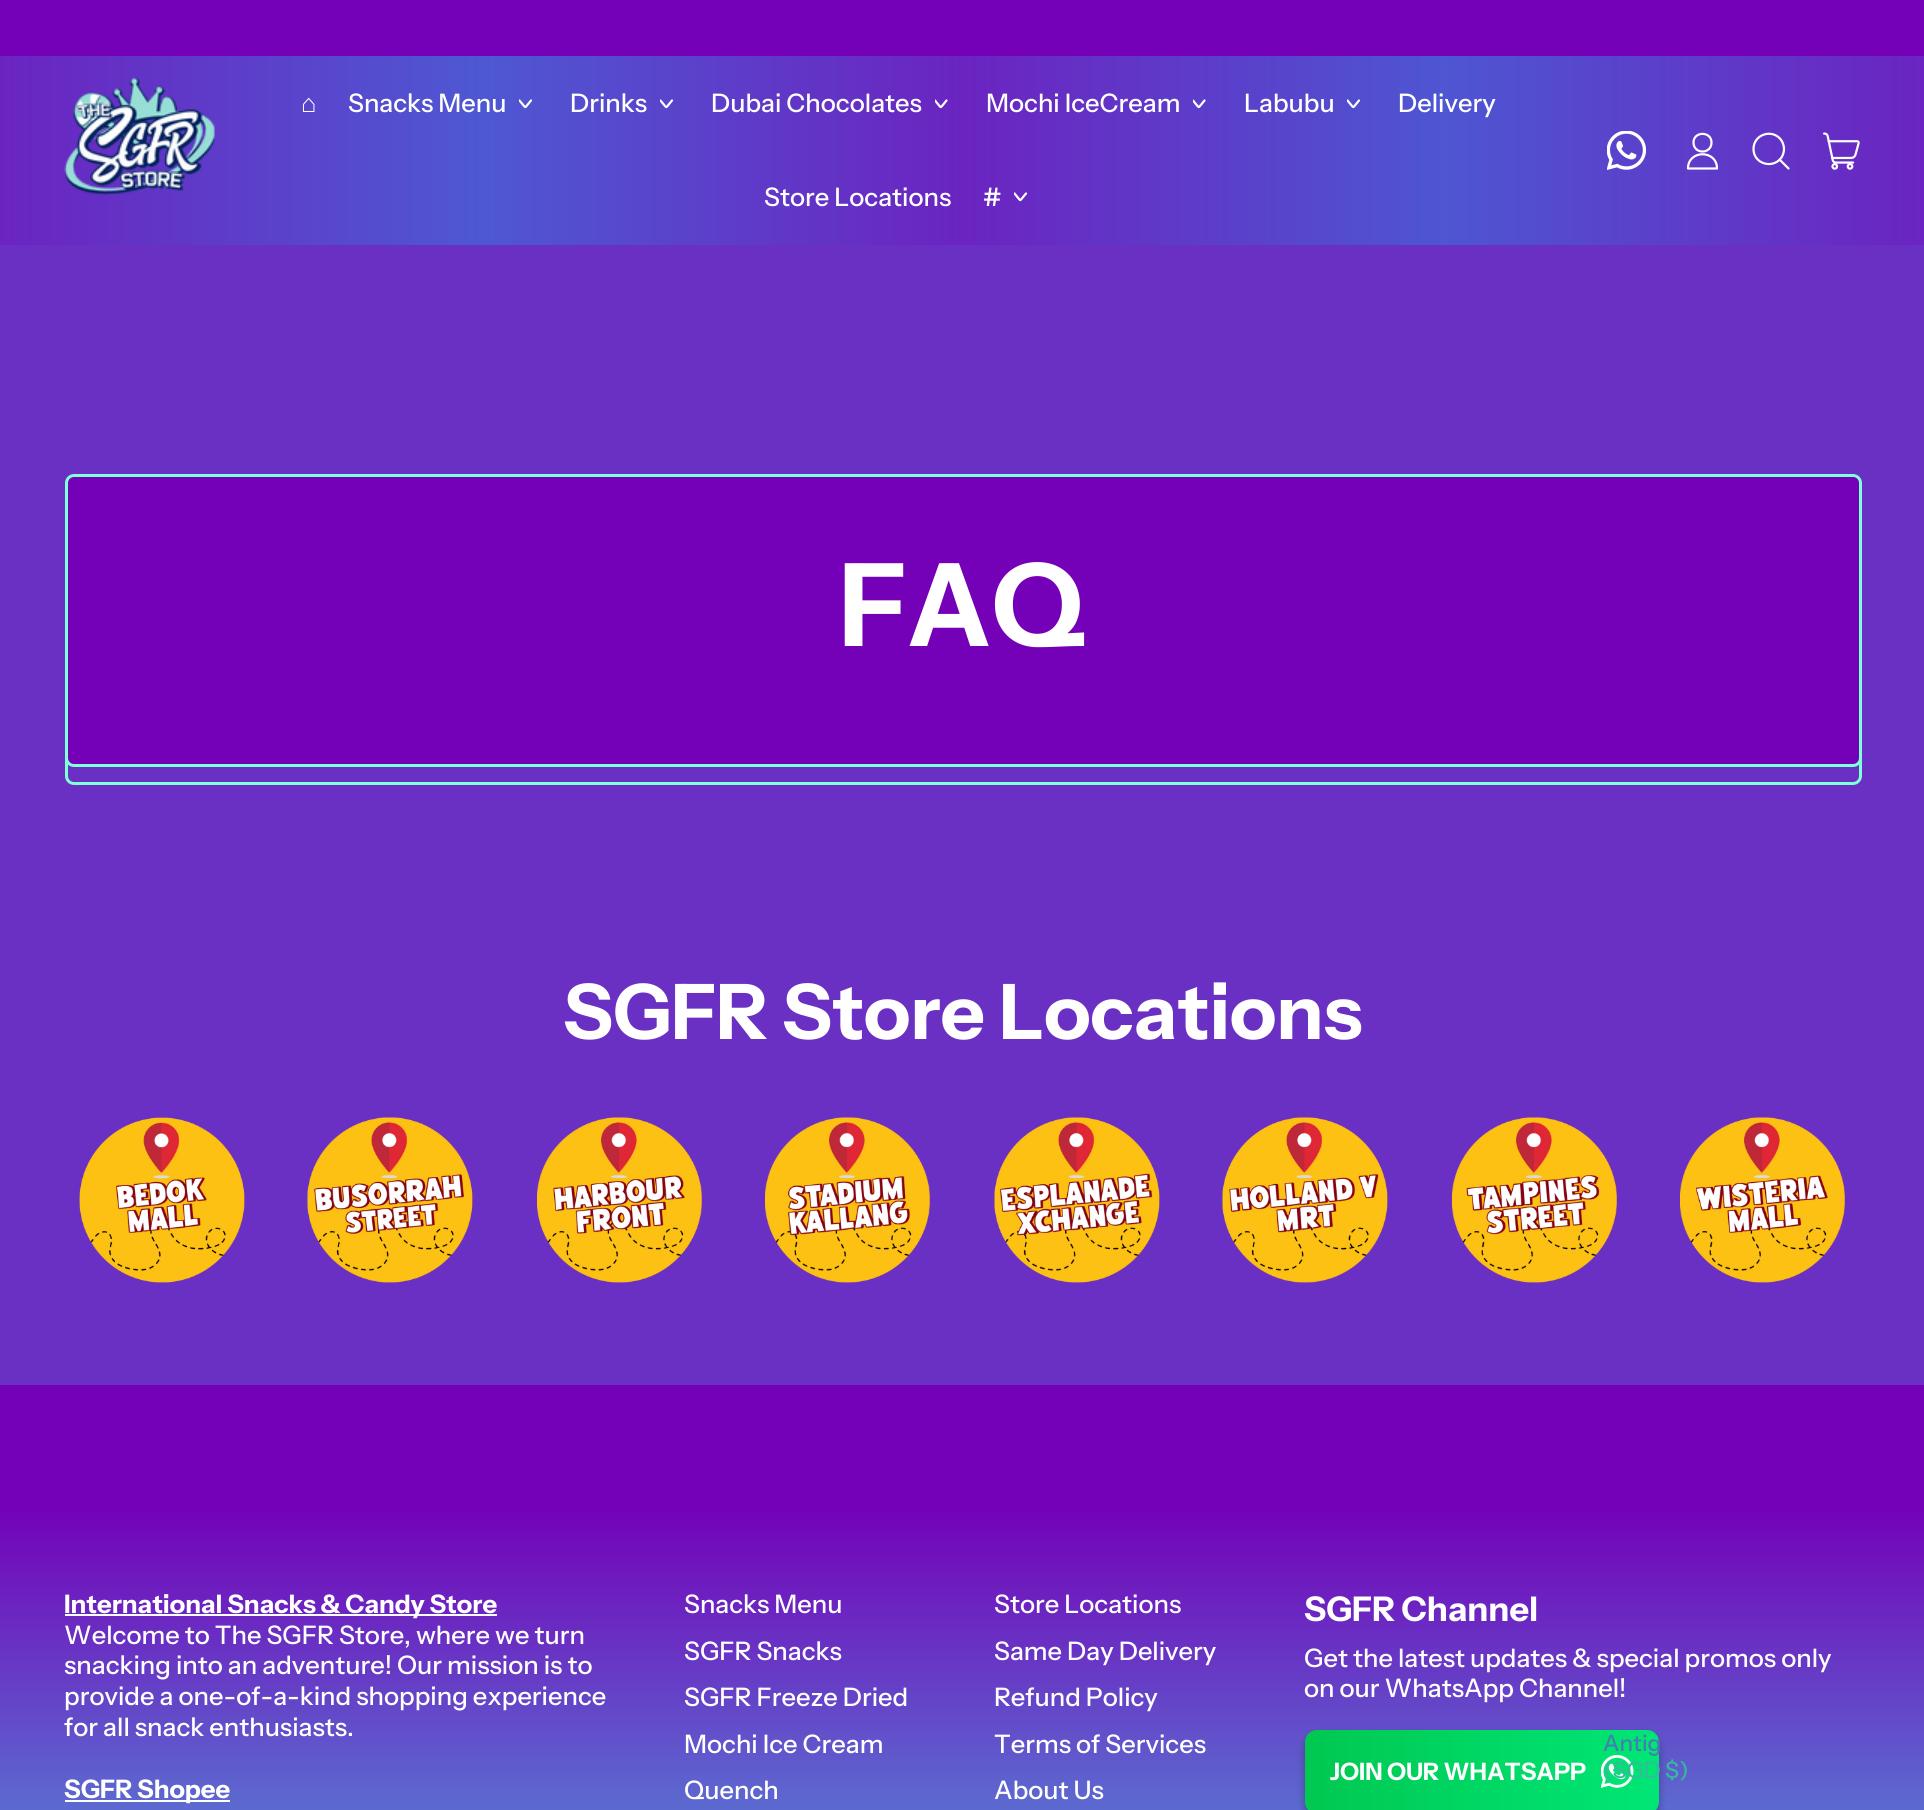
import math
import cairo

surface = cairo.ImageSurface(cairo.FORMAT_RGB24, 1924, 1810)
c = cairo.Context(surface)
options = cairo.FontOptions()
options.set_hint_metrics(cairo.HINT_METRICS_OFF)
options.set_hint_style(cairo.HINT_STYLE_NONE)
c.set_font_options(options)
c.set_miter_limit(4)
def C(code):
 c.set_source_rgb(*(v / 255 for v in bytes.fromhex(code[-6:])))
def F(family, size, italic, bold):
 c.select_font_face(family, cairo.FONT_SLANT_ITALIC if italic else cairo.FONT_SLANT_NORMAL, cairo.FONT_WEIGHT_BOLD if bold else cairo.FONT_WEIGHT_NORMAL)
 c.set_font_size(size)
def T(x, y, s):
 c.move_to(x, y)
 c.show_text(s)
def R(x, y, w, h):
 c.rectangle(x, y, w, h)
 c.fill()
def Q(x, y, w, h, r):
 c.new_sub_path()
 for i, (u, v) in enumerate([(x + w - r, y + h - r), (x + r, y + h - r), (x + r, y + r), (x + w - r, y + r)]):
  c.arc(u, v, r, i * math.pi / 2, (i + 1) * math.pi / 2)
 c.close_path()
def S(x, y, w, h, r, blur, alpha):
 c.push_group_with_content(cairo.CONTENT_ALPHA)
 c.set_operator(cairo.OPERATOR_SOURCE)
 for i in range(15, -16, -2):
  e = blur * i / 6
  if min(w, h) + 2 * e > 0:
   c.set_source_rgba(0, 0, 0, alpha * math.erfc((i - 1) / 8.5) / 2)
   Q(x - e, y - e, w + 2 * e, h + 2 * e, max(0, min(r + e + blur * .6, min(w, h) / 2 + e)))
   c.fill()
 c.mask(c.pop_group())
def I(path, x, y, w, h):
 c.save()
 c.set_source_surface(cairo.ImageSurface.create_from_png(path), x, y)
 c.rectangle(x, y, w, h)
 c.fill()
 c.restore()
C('7400b8')
c.paint()
gradient = cairo.LinearGradient(0,150,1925,150)
gradient.add_color_stop_rgba(0,0.42,0.141,0.757,1)
gradient.add_color_stop_rgba(.25,0.306,0.345,0.824,1)
gradient.add_color_stop_rgba(.5,0.42,0.141,0.757,1)
gradient.add_color_stop_rgba(.75,0.306,0.337,0.824,1)
gradient.add_color_stop_rgba(1,0.42,0.141,0.757,1)
c.set_source(gradient)
R(0,56,1924,189)
I('1.png',64,77,151,119)
F('Liberation Sans',25.5,0,0)
C('ffffff')
T(301,112,'⌂')
F('Instrument Sans Medium',25.5,0,0)
T(348,112,'Snacks Menu')
c.save()
c.rectangle(519,98,14,12)
c.clip()
c.new_path()
c.move_to(519.5,100.5)
c.line_to(524,106)
c.curve_to(525.5,107.5,525,107.5,526.5,106)
c.line_to(531,100.5)
c.set_line_width(2.2)
c.set_line_cap(cairo.LINE_CAP_ROUND)
c.set_line_join(cairo.LINE_JOIN_ROUND)
c.stroke()
c.restore()
T(570,112,'Drinks')
c.save()
c.rectangle(660,98,14,12)
c.clip()
c.new_path()
c.move_to(660.5,100.5)
c.line_to(665,106)
c.curve_to(666.5,107.5,666,107.5,667.5,106)
c.line_to(672,100.5)
c.set_line_width(2.2)
c.set_line_cap(cairo.LINE_CAP_ROUND)
c.set_line_join(cairo.LINE_JOIN_ROUND)
c.stroke()
c.restore()
T(711,112,'Dubai Chocolates')
c.save()
c.rectangle(935,98,13,12)
c.clip()
c.new_path()
c.move_to(935,100.5)
c.line_to(939.5,106)
c.curve_to(941,107.5,940.5,107.5,942,106)
c.line_to(946.5,100.5)
c.set_line_width(2.2)
c.set_line_cap(cairo.LINE_CAP_ROUND)
c.set_line_join(cairo.LINE_JOIN_ROUND)
c.stroke()
c.restore()
T(986,112,'Mochi IceCream')
c.save()
c.rectangle(1193,98,13,12)
c.clip()
c.new_path()
c.move_to(1193,100.5)
c.line_to(1197.5,106)
c.curve_to(1199,107.5,1198.5,107.5,1200,106)
c.line_to(1204.5,100.5)
c.set_line_width(2.2)
c.set_line_cap(cairo.LINE_CAP_ROUND)
c.set_line_join(cairo.LINE_JOIN_ROUND)
c.stroke()
c.restore()
T(1244,112,'Labubu')
c.save()
c.rectangle(1347,98,14,12)
c.clip()
c.new_path()
c.move_to(1347.5,100.5)
c.line_to(1352,106)
c.curve_to(1353.5,107.5,1353,107.5,1354.5,106)
c.line_to(1359,100.5)
c.set_line_width(2.2)
c.set_line_cap(cairo.LINE_CAP_ROUND)
c.set_line_join(cairo.LINE_JOIN_ROUND)
c.stroke()
c.restore()
T(1398,112,'Delivery')
T(764,206,'Store Locations')
T(983,206,'#')
c.save()
c.rectangle(1014,191,14,13)
c.clip()
c.new_path()
c.move_to(1014.5,193.5)
c.line_to(1019,199)
c.curve_to(1020.5,200.5,1020,200.5,1021.5,199)
c.line_to(1026,193.5)
c.set_line_width(2.2)
c.set_line_cap(cairo.LINE_CAP_ROUND)
c.set_line_join(cairo.LINE_JOIN_ROUND)
c.stroke()
c.restore()
I('2.png',1607,131,39,39)
c.new_path()
c.move_to(1693.5,142.5)
c.curve_to(1693.5,154.5,1711.5,154.5,1711.5,142.5)
c.curve_to(1711.5,131,1693.5,131,1693.5,142.5)
c.close_path()
c.move_to(1688,168.5)
c.curve_to(1688,149.5,1717,149.5,1717,168.5)
c.close_path()
c.set_line_width(2.2)
c.set_line_cap(cairo.LINE_CAP_ROUND)
c.set_line_join(cairo.LINE_JOIN_ROUND)
c.stroke()
c.new_path()
c.move_to(1753.5,149)
c.curve_to(1753.5,164,1773,169.5,1781.5,157.5)
c.curve_to(1783,155,1784,152,1784,149)
c.curve_to(1784,146,1783,143,1781.5,140.5)
c.curve_to(1773,128,1753.5,134,1753.5,149)
c.close_path()
c.move_to(1788.5,168.5)
c.line_to(1779.5,159.5)
c.stroke()
I('3.png',1823,132,37,38)
C('6930c3')
R(0,245,1924,1140)
Q(66.5,493.5,1794,290,7.5)
C('80ffdb')
c.set_line_width(3)
c.set_line_cap(cairo.LINE_CAP_BUTT)
c.set_line_join(cairo.LINE_JOIN_MITER)
c.stroke()
C('7400b8')
Q(66.5,475.5,1794,290,7.5)
c.fill_preserve()
C('80ffdb')
c.stroke()
F('Instrument Sans',115,0,1)
C('ffffff')
T(839,646,'FAQ')
F('Instrument Sans',76.5,0,1)
T(563,1039,'SGFR Store Locations')
I('4.png',79,1117,166,166)
I('5.png',307,1117,166,166)
I('6.png',537,1117,165,166)
I('7.png',765,1117,165,166)
I('8.png',994,1117,166,166)
I('9.png',1222,1117,166,166)
I('10.png',1452,1117,165,166)
I('11.png',1680,1117,165,166)
gradient = cairo.LinearGradient(962,1385,962,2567)
gradient.add_color_stop_rgba(.1,0.455,0,0.722,1)
gradient.add_color_stop_rgba(.51,0.306,0.659,0.871,1)
gradient.add_color_stop_rgba(.88,0.282,0.749,0.89,1)
c.set_source(gradient)
R(0,1510,1924,300)
C('ffffff')
R(65,1614,432,2)
F('Instrument Sans',25.5,0,1)
T(64,1613,'International Snacks & Candy Store')
F('Instrument Sans Medium',25.5,0,0)
T(64,1644,'Welcome to The SGFR Store, where we turn')
T(64,1674,'snacking into an adventure! Our mission is to')
T(64,1705,'provide a one-of-a-kind shopping experience')
T(64,1736,'for all snack enthusiasts.')
R(65,1800,165,2)
F('Instrument Sans',25.5,0,1)
T(64,1798,'SGFR Shopee')
F('Instrument Sans Medium',25.5,0,0)
T(684,1613,'Snacks Menu')
T(684,1660,'SGFR Snacks')
T(684,1706,'SGFR Freeze Dried')
T(684,1753,'Mochi Ice Cream')
T(684,1799,'Quench')
T(994,1613,'Store Locations')
T(994,1660,'Same Day Delivery')
T(994,1706,'Refund Policy')
T(994,1753,'Terms of Services')
T(994,1799,'About Us')
F('Instrument Sans',34,0,1)
T(1304,1621,'SGFR Channel')
F('Instrument Sans Medium',25.5,0,0)
T(1304,1667,'Get the latest updates & special promos only')
T(1304,1697,'on our WhatsApp Channel!')
C('000000')
S(1305,1736,354,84,12,4.5,.3)
gradient = cairo.LinearGradient(1305,1772,1659,1772)
gradient.add_color_stop_rgba(0,0,0.784,0.318,1)
gradient.add_color_stop_rgba(1,0,0.902,0.463,1)
c.set_source(gradient)
Q(1305,1730,354,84,12)
c.fill()
F('Instrument Sans',24,0,1)
C('ffffff')
T(1330,1780,'JOIN OUR WHATSAPP')
I('12.png',1601,1755,33,33)
F('Instrument Sans Medium',22.5,0,0)
C('447eb1')
T(1603,1751,'Antig')
C('34bb9b')
T(1603,1778,'(SGD $)')
surface.write_to_png('o.png')
